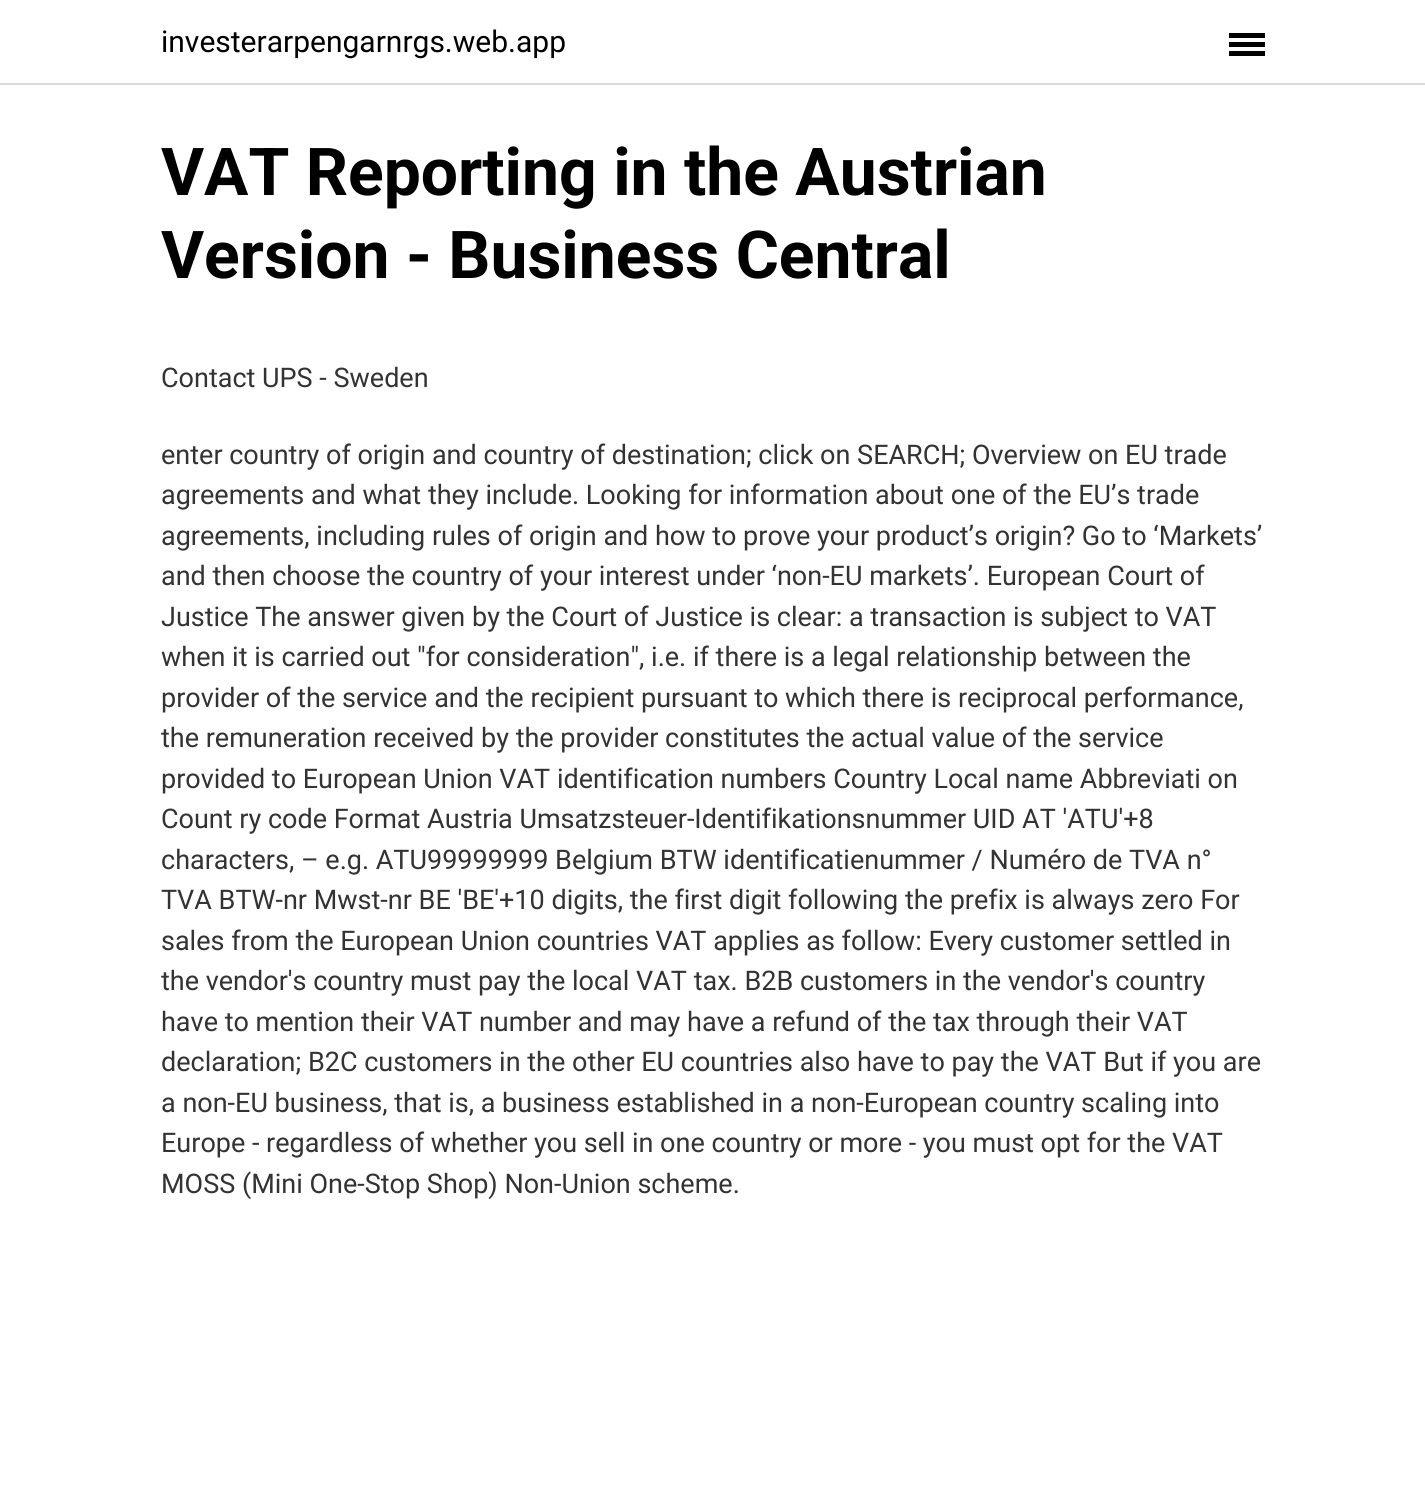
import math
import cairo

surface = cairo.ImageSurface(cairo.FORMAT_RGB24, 1425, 1491)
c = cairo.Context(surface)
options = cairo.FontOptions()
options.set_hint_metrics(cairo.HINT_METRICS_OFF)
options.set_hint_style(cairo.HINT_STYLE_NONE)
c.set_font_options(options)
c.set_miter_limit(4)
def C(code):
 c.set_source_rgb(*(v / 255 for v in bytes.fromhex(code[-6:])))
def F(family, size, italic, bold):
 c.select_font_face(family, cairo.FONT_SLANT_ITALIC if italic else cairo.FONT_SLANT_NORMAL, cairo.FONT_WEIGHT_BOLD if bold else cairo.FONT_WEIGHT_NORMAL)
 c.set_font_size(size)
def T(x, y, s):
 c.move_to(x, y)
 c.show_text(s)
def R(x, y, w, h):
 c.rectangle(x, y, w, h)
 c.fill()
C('ffffff')
c.paint()
C('dbdbdb')
R(0,83,1425,2)
F('Roboto',30,0,0)
C('000000')
T(161,52,'investerarpengarnrgs.web.app')
R(1229,42,36,5)
R(1229,33,36,5)
R(1229,51,36,5)
F('Roboto',66,0,1)
T(161,195,'VAT Reporting in the Austrian')
T(161,278,'Version - Business Central')
F('Roboto',27,0,0)
C('333333')
T(161,387,'Contact UPS - Sweden')
T(161,464,'enter country of origin and country of destination; click on SEARCH; Overview on EU trade')
T(161,504,'agreements and what they include. Looking for information about one of the EU’s trade')
T(161,545,'agreements, including rules of origin and how to prove your product’s origin? Go to ‘Markets’')
T(161,585,'and then choose the country of your interest under ‘non-EU markets’. European Court of')
T(161,626,'Justice The answer given by the Court of Justice is clear: a transaction is subject to VAT')
T(161,666,'when it is carried out "for consideration", i.e. if there is a legal relationship between the')
T(161,707,'provider of the service and the recipient pursuant to which there is reciprocal performance,')
T(161,747,'the remuneration received by the provider constitutes the actual value of the service')
T(161,788,'provided to European Union VAT identification numbers Country Local name Abbreviati on')
T(161,828,'Count ry code Format Austria Umsatzsteuer-Identifikationsnummer UID AT \'ATU\'+8')
T(161,869,'characters, – e.g. ATU99999999 Belgium BTW identificatienummer / Numéro de TVA n°')
T(161,909,'TVA BTW-nr Mwst-nr BE \'BE\'+10 digits, the first digit following the prefix is always zero For')
T(161,950,'sales from the European Union countries VAT applies as follow: Every customer settled in')
T(161,990,'the vendor\'s country must pay the local VAT tax. B2B customers in the vendor\'s country')
T(161,1031,'have to mention their VAT number and may have a refund of the tax through their VAT')
T(161,1071,'declaration; B2C customers in the other EU countries also have to pay the VAT But if you are')
T(161,1112,'a non-EU business, that is, a business established in a non-European country scaling into')
T(161,1152,'Europe - regardless of whether you sell in one country or more - you must opt for the VAT')
T(161,1193,'MOSS (Mini One-Stop Shop) Non-Union scheme.')
surface.write_to_png('o.png')
